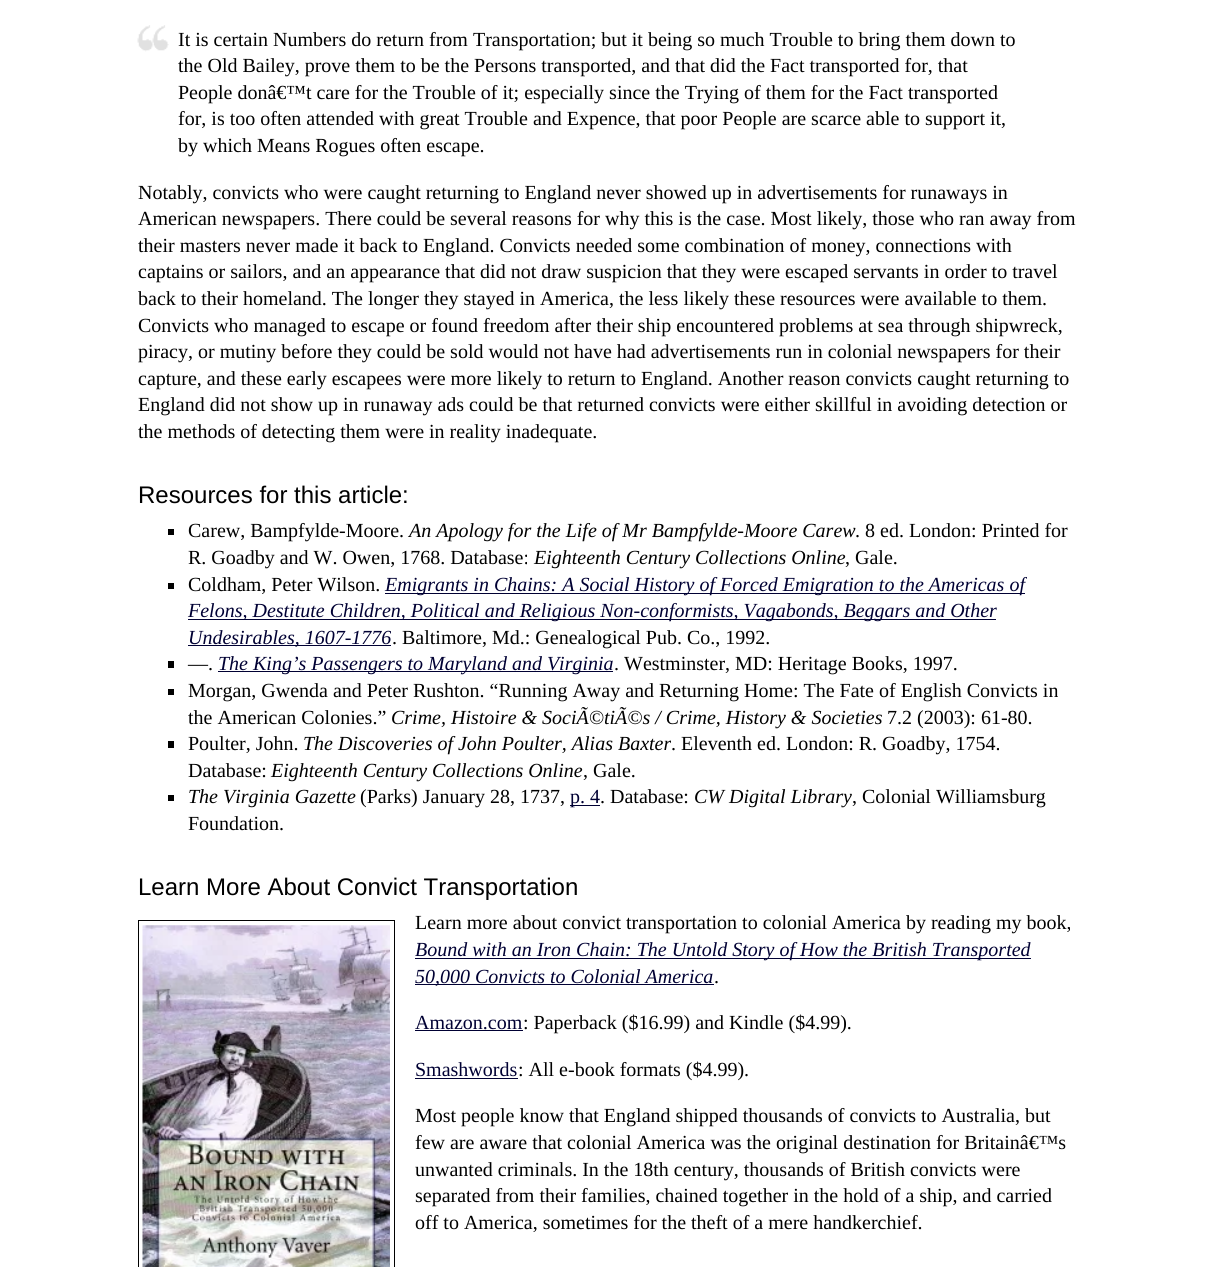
import math
import cairo

surface = cairo.ImageSurface(cairo.FORMAT_RGB24, 1215, 1267)
c = cairo.Context(surface)
options = cairo.FontOptions()
options.set_hint_metrics(cairo.HINT_METRICS_OFF)
options.set_hint_style(cairo.HINT_STYLE_NONE)
c.set_font_options(options)
c.set_miter_limit(4)
def C(code):
 c.set_source_rgb(*(v / 255 for v in bytes.fromhex(code[-6:])))
def F(family, size, italic, bold):
 c.select_font_face(family, cairo.FONT_SLANT_ITALIC if italic else cairo.FONT_SLANT_NORMAL, cairo.FONT_WEIGHT_BOLD if bold else cairo.FONT_WEIGHT_NORMAL)
 c.set_font_size(size)
def T(x, y, s):
 c.move_to(x, y)
 c.show_text(s)
def R(x, y, w, h):
 c.rectangle(x, y, w, h)
 c.fill()
def I(path, x, y, w, h):
 c.save()
 c.set_source_surface(cairo.ImageSurface.create_from_png(path), x, y)
 c.rectangle(x, y, w, h)
 c.fill()
 c.restore()
C('ffffff')
c.paint()
I('1.png',137,25,32,27)
F('Liberation Serif',20,0,0)
C('000000')
T(178,46,'It is certain Numbers do return from Transportation; but it being so much Trouble to bring them down to')
T(178,72,'the Old Bailey, prove them to be the Persons transported, and that did the Fact transported for, that')
T(178,99,'People donâ€™t care for the Trouble of it; especially since the Trying of them for the Fact transported')
T(178,125,'for, is too often attended with great Trouble and Expence, that poor People are scarce able to support it,')
T(178,152,'by which Means Rogues often escape.')
T(138,199,'Notably, convicts who were caught returning to England never showed up in advertisements for runaways in')
T(138,225,'American newspapers. There could be several reasons for why this is the case. Most likely, those who ran away from')
T(138,252,'their masters never made it back to England. Convicts needed some combination of money, connections with')
T(138,278,'captains or sailors, and an appearance that did not draw suspicion that they were escaped servants in order to travel')
T(138,305,'back to their homeland. The longer they stayed in America, the less likely these resources were available to them.')
T(138,332,'Convicts who managed to escape or found freedom after their ship encountered problems at sea through shipwreck,')
T(138,358,'piracy, or mutiny before they could be sold would not have had advertisements run in colonial newspapers for their')
T(138,385,'capture, and these early escapees were more likely to return to England. Another reason convicts caught returning to')
T(138,411,'England did not show up in runaway ads could be that returned convicts were either skillful in avoiding detection or')
T(138,438,'the methods of detecting them were in reality inadequate.')
F('Liberation Sans',24,0,0)
T(138,503,'Resources for this article:')
R(168,529,6,6)
F('Liberation Serif',20,0,0)
T(188,537,'Carew, Bampfylde-Moore.')
F('Liberation Serif',20,1,0)
T(409,537,'An Apology for the Life of Mr Bampfylde-Moore Carew')
F('Liberation Serif',20,0,0)
T(855,537,'. 8 ed. London: Printed for')
T(188,564,'R. Goadby and W. Owen, 1768. Database:')
F('Liberation Serif',20,1,0)
T(534,564,'Eighteenth Century Collections Online')
F('Liberation Serif',20,0,0)
T(845,564,', Gale.')
R(168,583,6,6)
T(188,591,'Coldham, Peter Wilson.')
C('000033')
R(385,593,640,1)
F('Liberation Serif',20,1,0)
T(385,591,'Emigrants in Chains: A Social History of Forced Emigration to the Americas of')
R(188,619,808,1)
T(188,617,'Felons, Destitute Children, Political and Religious Non-conformists, Vagabonds, Beggars and Other')
R(188,645,203,1)
T(188,644,'Undesirables, 1607-1776')
F('Liberation Serif',20,0,0)
C('000000')
T(392,644,'. Baltimore, Md.: Genealogical Pub. Co., 1992.')
R(168,661,6,7)
T(188,670,'—.')
C('000033')
R(218,671,395,1)
F('Liberation Serif',20,1,0)
T(218,670,'The King’s Passengers to Maryland and Virginia')
F('Liberation Serif',20,0,0)
C('000000')
T(614,670,'. Westminster, MD: Heritage Books, 1997.')
R(168,689,6,6)
T(188,697,'Morgan, Gwenda and Peter Rushton. “Running Away and Returning Home: The Fate of English Convicts in')
T(188,724,'the American Colonies.”')
F('Liberation Serif',20,1,0)
T(391,724,'Crime, Histoire & SociÃ©tiÃ©s / Crime, History & Societies')
F('Liberation Serif',20,0,0)
T(887,724,'7.2 (2003): 61-80.')
R(168,741,6,7)
T(188,750,'Poulter, John.')
F('Liberation Serif',20,1,0)
T(303,750,'The Discoveries of John Poulter, Alias Baxter')
F('Liberation Serif',20,0,0)
T(671,750,'. Eleventh ed. London: R. Goadby, 1754.')
T(188,777,'Database:')
F('Liberation Serif',20,1,0)
T(271,777,'Eighteenth Century Collections Online')
F('Liberation Serif',20,0,0)
T(583,777,', Gale.')
R(168,795,6,6)
F('Liberation Serif',20,1,0)
T(188,803,'The Virginia Gazette')
F('Liberation Serif',20,0,0)
T(360,803,'(Parks) January 28, 1737,')
C('000033')
R(570,805,30,1)
T(570,803,'p. 4')
C('000000')
T(600,803,'. Database:')
F('Liberation Serif',20,1,0)
T(694,803,'CW Digital Library')
F('Liberation Serif',20,0,0)
T(852,803,', Colonial Williamsburg')
T(188,830,'Foundation.')
F('Liberation Sans',24,0,0)
T(138,895,'Learn More About Convict Transportation')
c.rectangle(138.5,920.5,256,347)
c.set_line_width(1)
c.stroke()
I('2.png',142,925,248,342)
F('Liberation Serif',20,0,0)
T(415,929,'Learn more about convict transportation to colonial America by reading my book,')
C('000033')
R(415,958,616,1)
F('Liberation Serif',20,1,0)
T(415,956,'Bound with an Iron Chain: The Untold Story of How the British Transported')
R(415,984,299,1)
T(415,983,'50,000 Convicts to Colonial America')
F('Liberation Serif',20,0,0)
C('000000')
T(714,983,'.')
C('000033')
T(415,1029,'Amazon.com')
R(415,1030,108,1)
C('000000')
T(523,1029,': Paperback ($16.99) and Kindle ($4.99).')
C('000033')
T(415,1076,'Smashwords')
R(415,1078,103,1)
C('000000')
T(518,1076,': All e-book formats ($4.99).')
T(415,1122,'Most people know that England shipped thousands of convicts to Australia, but')
T(415,1149,'few are aware that colonial America was the original destination for Britainâ€™s')
T(415,1176,'unwanted criminals. In the 18th century, thousands of British convicts were')
T(415,1202,'separated from their families, chained together in the hold of a ship, and carried')
T(415,1229,'off to America, sometimes for the theft of a mere handkerchief.')
surface.write_to_png('o.png')
